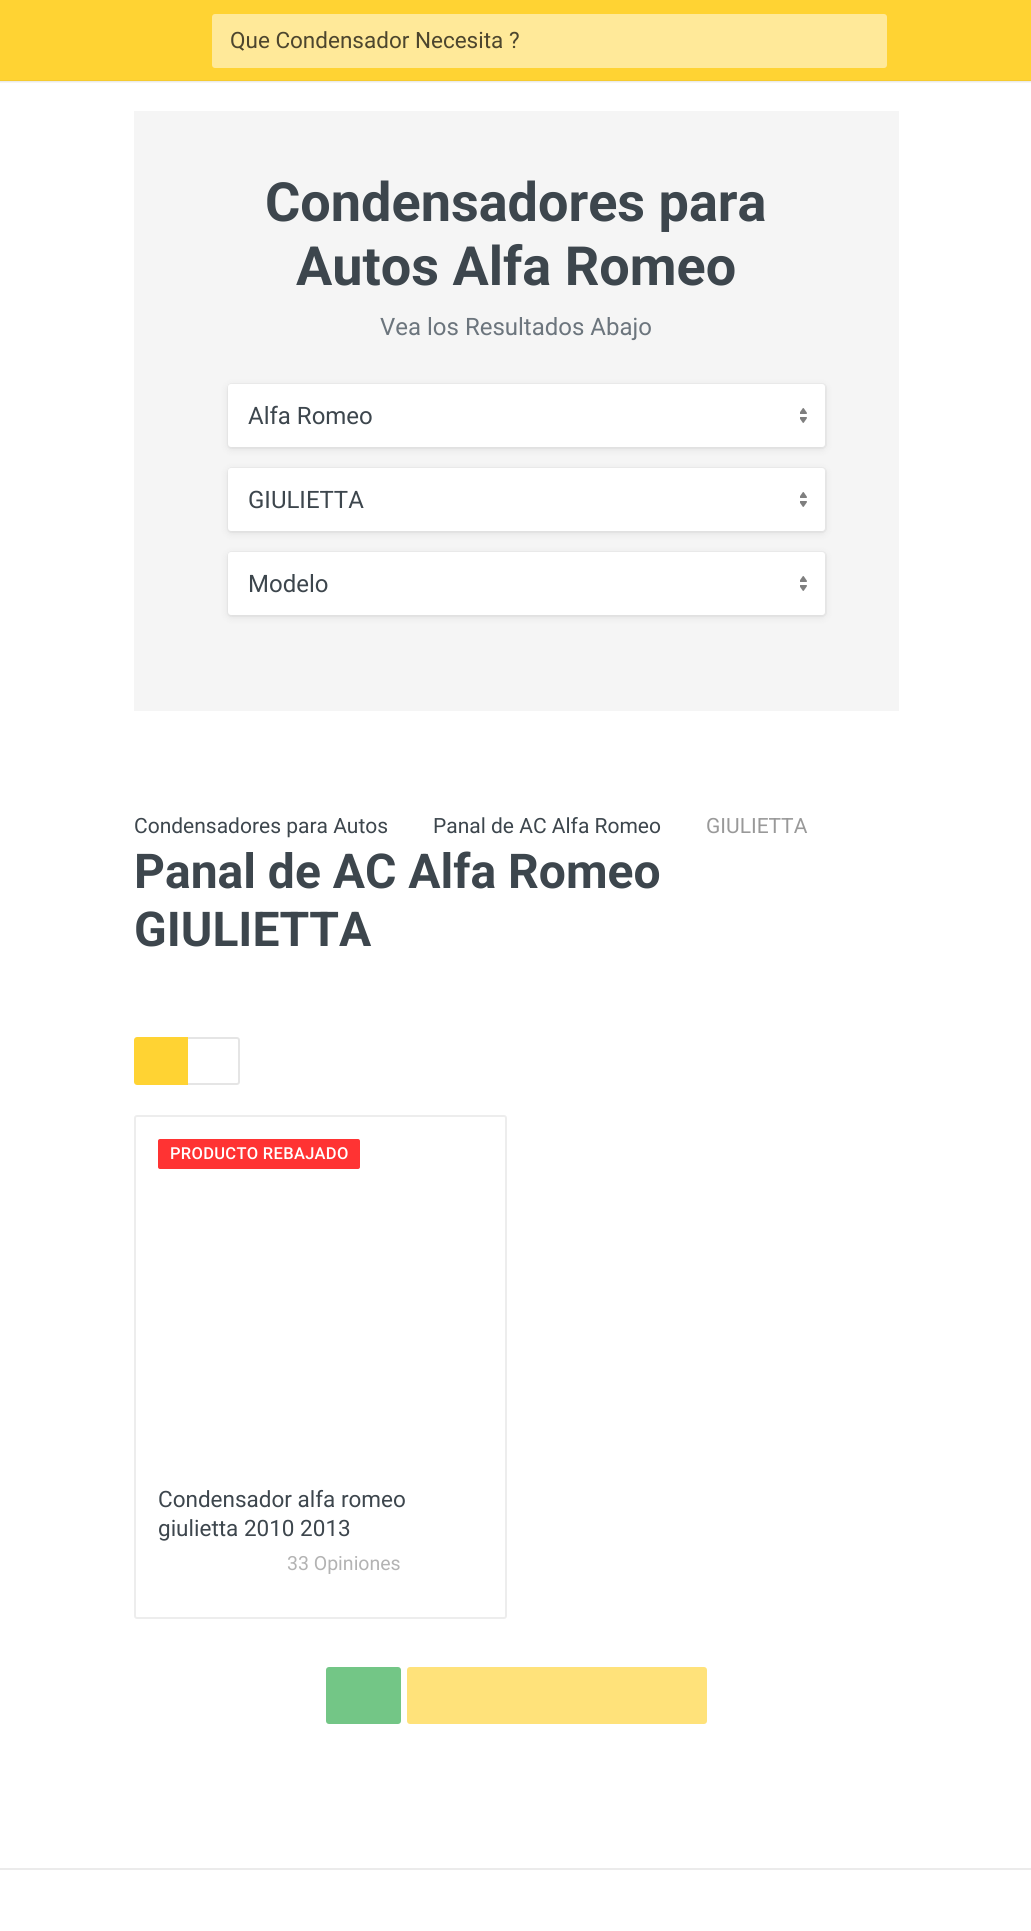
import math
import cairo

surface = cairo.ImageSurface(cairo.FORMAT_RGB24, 1031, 1931)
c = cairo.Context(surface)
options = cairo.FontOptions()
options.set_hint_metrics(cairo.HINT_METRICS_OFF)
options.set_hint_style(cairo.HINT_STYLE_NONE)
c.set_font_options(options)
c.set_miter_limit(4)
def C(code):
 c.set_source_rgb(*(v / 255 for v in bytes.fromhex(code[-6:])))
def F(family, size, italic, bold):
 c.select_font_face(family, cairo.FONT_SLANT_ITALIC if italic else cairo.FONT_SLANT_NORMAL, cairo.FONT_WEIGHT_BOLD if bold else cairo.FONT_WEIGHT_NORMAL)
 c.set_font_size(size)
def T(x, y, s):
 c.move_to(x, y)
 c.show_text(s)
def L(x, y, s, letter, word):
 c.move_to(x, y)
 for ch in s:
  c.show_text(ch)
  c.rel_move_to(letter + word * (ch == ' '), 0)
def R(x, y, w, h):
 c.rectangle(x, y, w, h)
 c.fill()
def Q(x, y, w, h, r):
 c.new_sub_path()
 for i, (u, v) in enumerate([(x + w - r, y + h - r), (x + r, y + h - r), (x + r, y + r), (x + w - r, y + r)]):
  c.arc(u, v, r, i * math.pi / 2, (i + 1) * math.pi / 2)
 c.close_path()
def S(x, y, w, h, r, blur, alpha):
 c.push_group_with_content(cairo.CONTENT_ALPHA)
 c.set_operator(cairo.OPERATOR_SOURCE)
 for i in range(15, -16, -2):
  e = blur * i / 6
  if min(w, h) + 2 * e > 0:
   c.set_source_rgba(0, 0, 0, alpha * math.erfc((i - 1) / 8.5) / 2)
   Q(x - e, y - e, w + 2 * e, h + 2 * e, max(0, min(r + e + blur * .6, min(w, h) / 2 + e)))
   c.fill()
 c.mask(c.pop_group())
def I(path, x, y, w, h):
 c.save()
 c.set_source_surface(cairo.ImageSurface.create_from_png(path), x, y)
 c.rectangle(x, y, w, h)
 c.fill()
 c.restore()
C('ffffff')
c.paint()
C('f5f5f5')
R(0,82,1031,1)
C('ebebeb')
R(0,81,1031,1)
C('ffd333')
R(0,0,1031,80)
C('f5cb31')
R(0,80,1031,1)
C('ffe999')
Q(212,14,675,54,3)
c.fill()
F('Roboto',22.5,0,0)
C('4d462e')
T(230,48,'Que Condensador Necesita ?')
C('f5f5f5')
R(134,111,765,600)
F('Roboto',54,0,1)
C('3d464d')
T(265,221,'Condensadores para')
T(296,285,'Autos Alfa Romeo')
F('Roboto',24,0,0)
C('6c757d')
T(380,335,'Vea los Resultados Abajo')
Q(228,384,598,64,4)
C('eeeeee')
c.stroke()
C('000000')
S(228,386,597,63,3,4,.09)
C('ffffff')
Q(228,384,597,63,3)
c.fill()
I('1.png',800,408,7,15)
C('3d464d')
T(248,424,'Alfa Romeo')
Q(228,468,598,64,4)
C('eeeeee')
c.stroke()
C('000000')
S(228,470,597,63,3,4,.09)
C('ffffff')
Q(228,468,597,63,3)
c.fill()
I('1.png',800,492,7,15)
C('3d464d')
T(248,508,'GIULIETTA')
Q(228,552,598,64,4)
C('eeeeee')
c.stroke()
C('000000')
S(228,554,597,63,3,4,.09)
C('ffffff')
Q(228,552,597,63,3)
c.fill()
I('1.png',800,576,7,15)
C('3d464d')
T(248,592,'Modelo')
F('Roboto',21,0,0)
T(134,833,'Condensadores para Autos')
T(433,833,'Panal de AC Alfa Romeo')
C('999999')
T(706,833,'GIULIETTA')
F('Roboto',48,0,1)
C('3d464d')
T(134,888,'Panal de AC Alfa Romeo')
T(134,946,'GIULIETTA')
c.new_path()
c.move_to(187,1038)
c.line_to(237,1038)
c.curve_to(238,1038,239,1039,239,1040)
c.line_to(239,1082)
c.curve_to(239,1083,238,1084,237,1084)
c.line_to(187,1084)
c.close_path()
C('e5e5e5')
c.stroke()
C('ffd333')
c.new_path()
c.move_to(137,1038)
c.line_to(187,1038)
c.line_to(187,1084)
c.line_to(137,1084)
c.curve_to(136,1084,135,1083,135,1082)
c.line_to(135,1040)
c.curve_to(135,1039,136,1038,137,1038)
c.close_path()
c.fill_preserve()
c.stroke()
Q(135,1116,371,502,2)
C('ededed')
c.stroke()
C('ff3333')
Q(158,1139,202,30,2)
c.fill()
F('Roboto Medium',16.5,0,0)
C('ffffff')
L(170,1159,'PRODUCTO REBAJADO',.3,0)
F('Roboto',22.5,0,0)
C('3d464d')
T(158,1507,'Condensador alfa romeo')
T(158,1536,'giulietta 2010 2013')
F('Roboto',19.5,0,0)
C('b3b3b3')
T(287,1570,'33 Opiniones')
C('73c686')
Q(327,1668,73,55,2)
c.fill_preserve()
c.stroke()
C('ffe27a')
Q(408,1668,298,55,2)
c.fill_preserve()
c.stroke()
C('ebebeb')
R(0,1868,1031,2)
surface.write_to_png('o.png')
